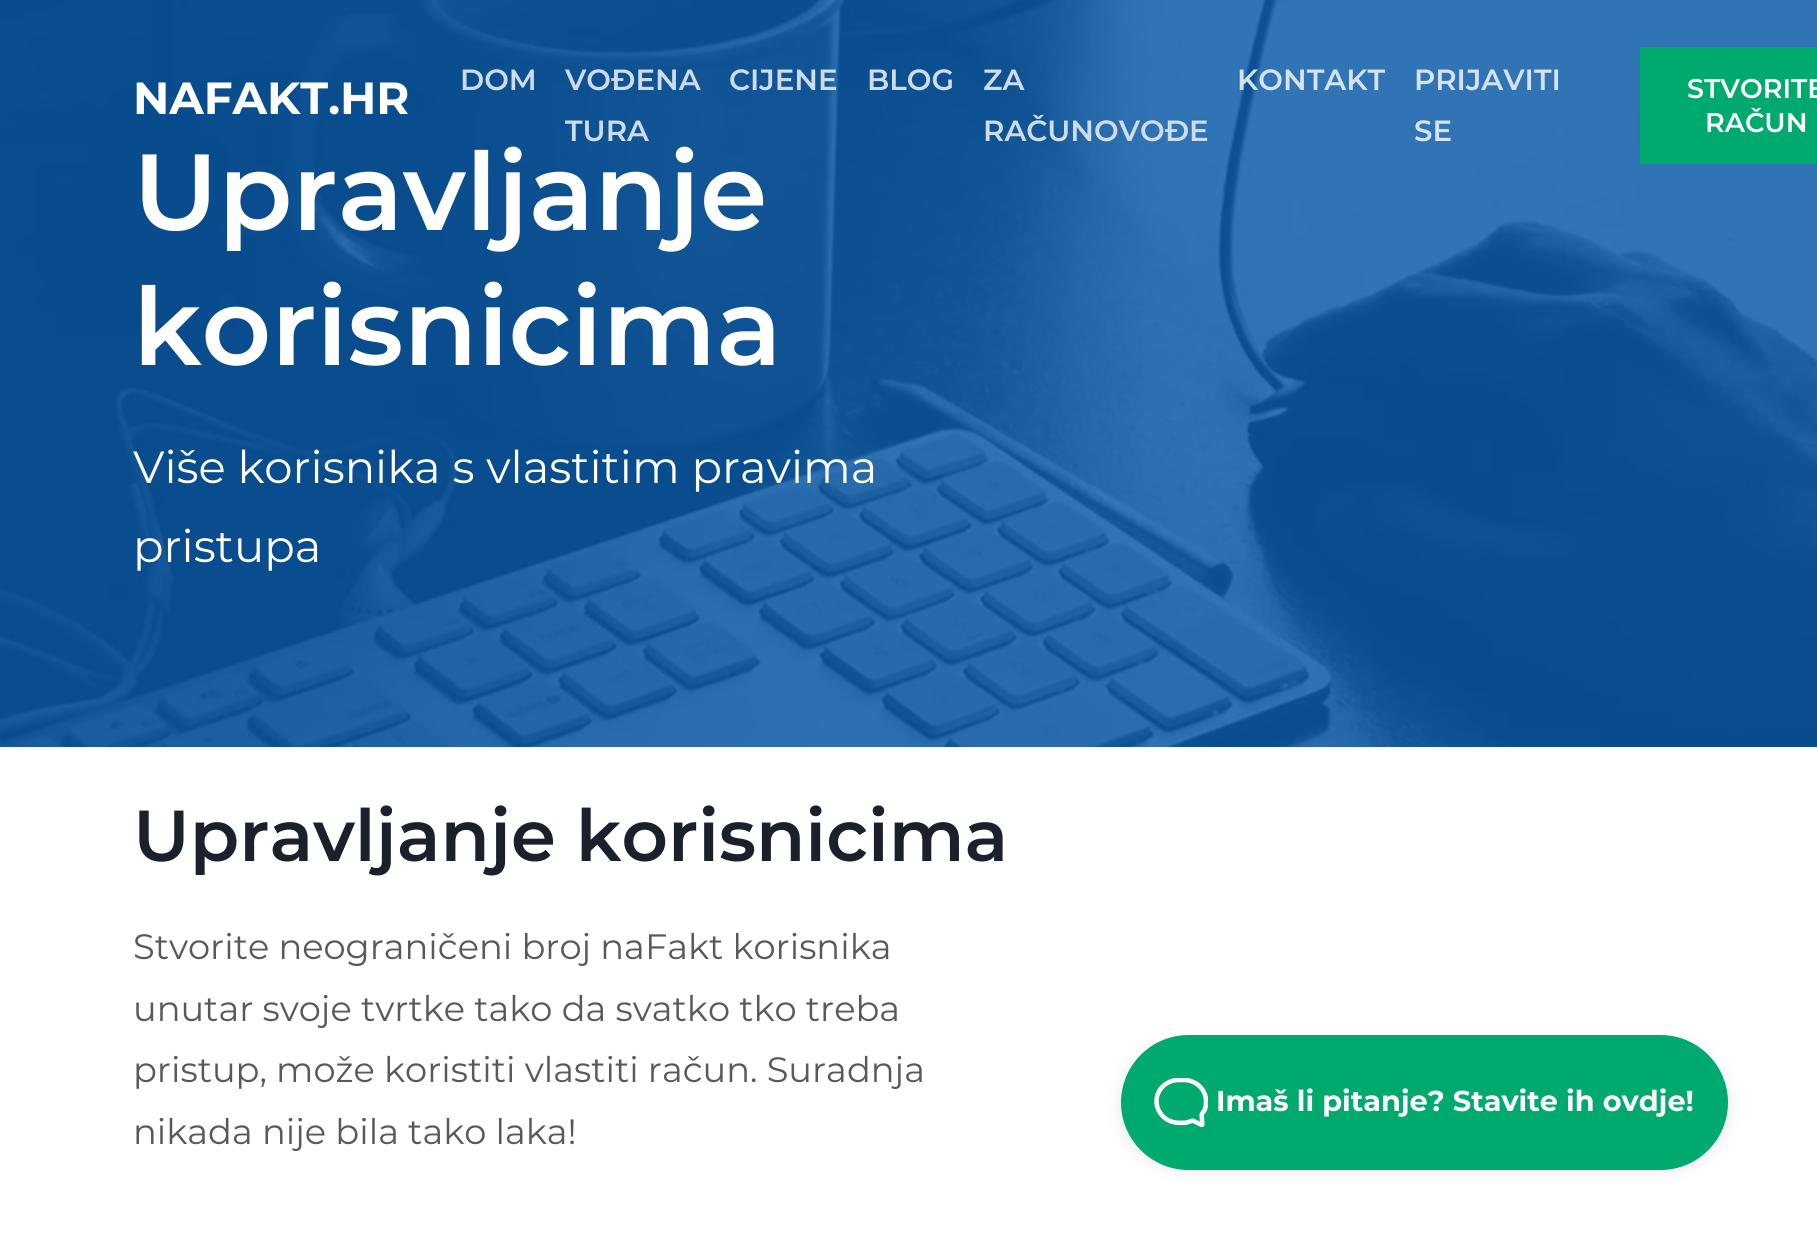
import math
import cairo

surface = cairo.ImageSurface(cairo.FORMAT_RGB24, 1817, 1248)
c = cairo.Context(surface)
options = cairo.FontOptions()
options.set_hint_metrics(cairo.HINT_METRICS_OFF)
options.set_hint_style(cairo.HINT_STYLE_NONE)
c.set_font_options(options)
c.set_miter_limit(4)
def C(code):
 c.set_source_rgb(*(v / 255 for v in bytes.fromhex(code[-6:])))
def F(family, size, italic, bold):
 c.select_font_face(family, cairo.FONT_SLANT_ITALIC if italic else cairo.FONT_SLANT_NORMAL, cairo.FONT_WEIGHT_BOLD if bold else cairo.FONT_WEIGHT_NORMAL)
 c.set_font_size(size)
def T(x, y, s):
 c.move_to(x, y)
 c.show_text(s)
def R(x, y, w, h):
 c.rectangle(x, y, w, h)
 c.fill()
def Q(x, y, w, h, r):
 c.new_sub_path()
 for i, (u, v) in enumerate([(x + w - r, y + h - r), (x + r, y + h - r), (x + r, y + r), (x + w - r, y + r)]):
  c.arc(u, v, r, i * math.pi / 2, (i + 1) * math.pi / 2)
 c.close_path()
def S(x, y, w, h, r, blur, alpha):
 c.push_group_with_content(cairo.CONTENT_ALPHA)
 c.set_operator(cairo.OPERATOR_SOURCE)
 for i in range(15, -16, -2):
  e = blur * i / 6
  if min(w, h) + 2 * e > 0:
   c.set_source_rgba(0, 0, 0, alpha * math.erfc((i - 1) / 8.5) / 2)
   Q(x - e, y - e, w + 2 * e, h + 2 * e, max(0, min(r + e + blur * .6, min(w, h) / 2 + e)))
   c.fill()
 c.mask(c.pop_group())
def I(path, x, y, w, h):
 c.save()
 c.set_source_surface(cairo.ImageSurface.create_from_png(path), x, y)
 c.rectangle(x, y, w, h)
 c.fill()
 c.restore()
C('ffffff')
c.paint()
C('0054a5')
R(0,0,1817,747)
I('1.png',0,0,1817,747)
F('Montserrat',45,0,1)
C('ffffff')
T(133,114,'NAFAKT.HR')
F('Montserrat SemiBold',29.25,0,0)
C('cedce9')
T(460,90,'DOM')
T(565,90,'VOĐENA')
T(565,141,'TURA')
T(729,90,'CIJENE')
T(867,90,'BLOG')
T(983,90,'ZA')
T(983,141,'RAČUNOVOĐE')
C('d5e3f0')
T(1237,90,'KONTAKT')
T(1414,90,'PRIJAVITI')
T(1414,141,'SE')
C('00aa6e')
R(1640,47,177,117)
F('Montserrat SemiBold',27,0,0)
C('ffffff')
T(1687,98,'STVORITE')
T(1705,132,'RAČUN')
F('Montserrat SemiBold',108,0,0)
T(133,230,'Upravljanje')
T(133,365,'korisnicima')
F('Montserrat',45,0,0)
T(133,483,'Više korisnika s vlastitim pravima')
T(133,562,'pristupa')
F('Montserrat SemiBold',72,0,0)
C('1a202c')
T(133,861,'Upravljanje korisnicima')
F('Montserrat',35.2,0,0)
C('5b5858')
T(133,959,'Stvorite neograničeni broj naFakt korisnika')
T(133,1021,'unutar svoje tvrtke tako da svatko tko treba')
T(133,1082,'pristup, može koristiti vlastiti račun. Suradnja')
T(133,1144,'nikada nije bila tako laka!')
c.save()
c.set_fill_rule(cairo.FILL_RULE_EVEN_ODD)
c.new_path()
c.move_to(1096,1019)
c.line_to(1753,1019)
c.line_to(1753,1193)
c.line_to(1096,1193)
c.close_path()
c.move_to(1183,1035)
c.line_to(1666,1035)
c.curve_to(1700,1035,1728,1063,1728,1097)
c.curve_to(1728,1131,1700,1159,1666,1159)
c.line_to(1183,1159)
c.curve_to(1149,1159,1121,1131,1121,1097)
c.curve_to(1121,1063,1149,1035,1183,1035)
c.close_path()
c.clip()
C('000000')
S(1121,1044,607,124,62,8,.1)
c.restore()
C('00aa6e')
Q(1121,1035,607,135,67.5)
c.fill()
I('2.png',1154,1078,54,49)
F('Montserrat',28.75,0,1)
C('ffffff')
T(1216,1111,'Imaš li pitanje? Stavite ih ovdje!')
surface.write_to_png('o.png')
